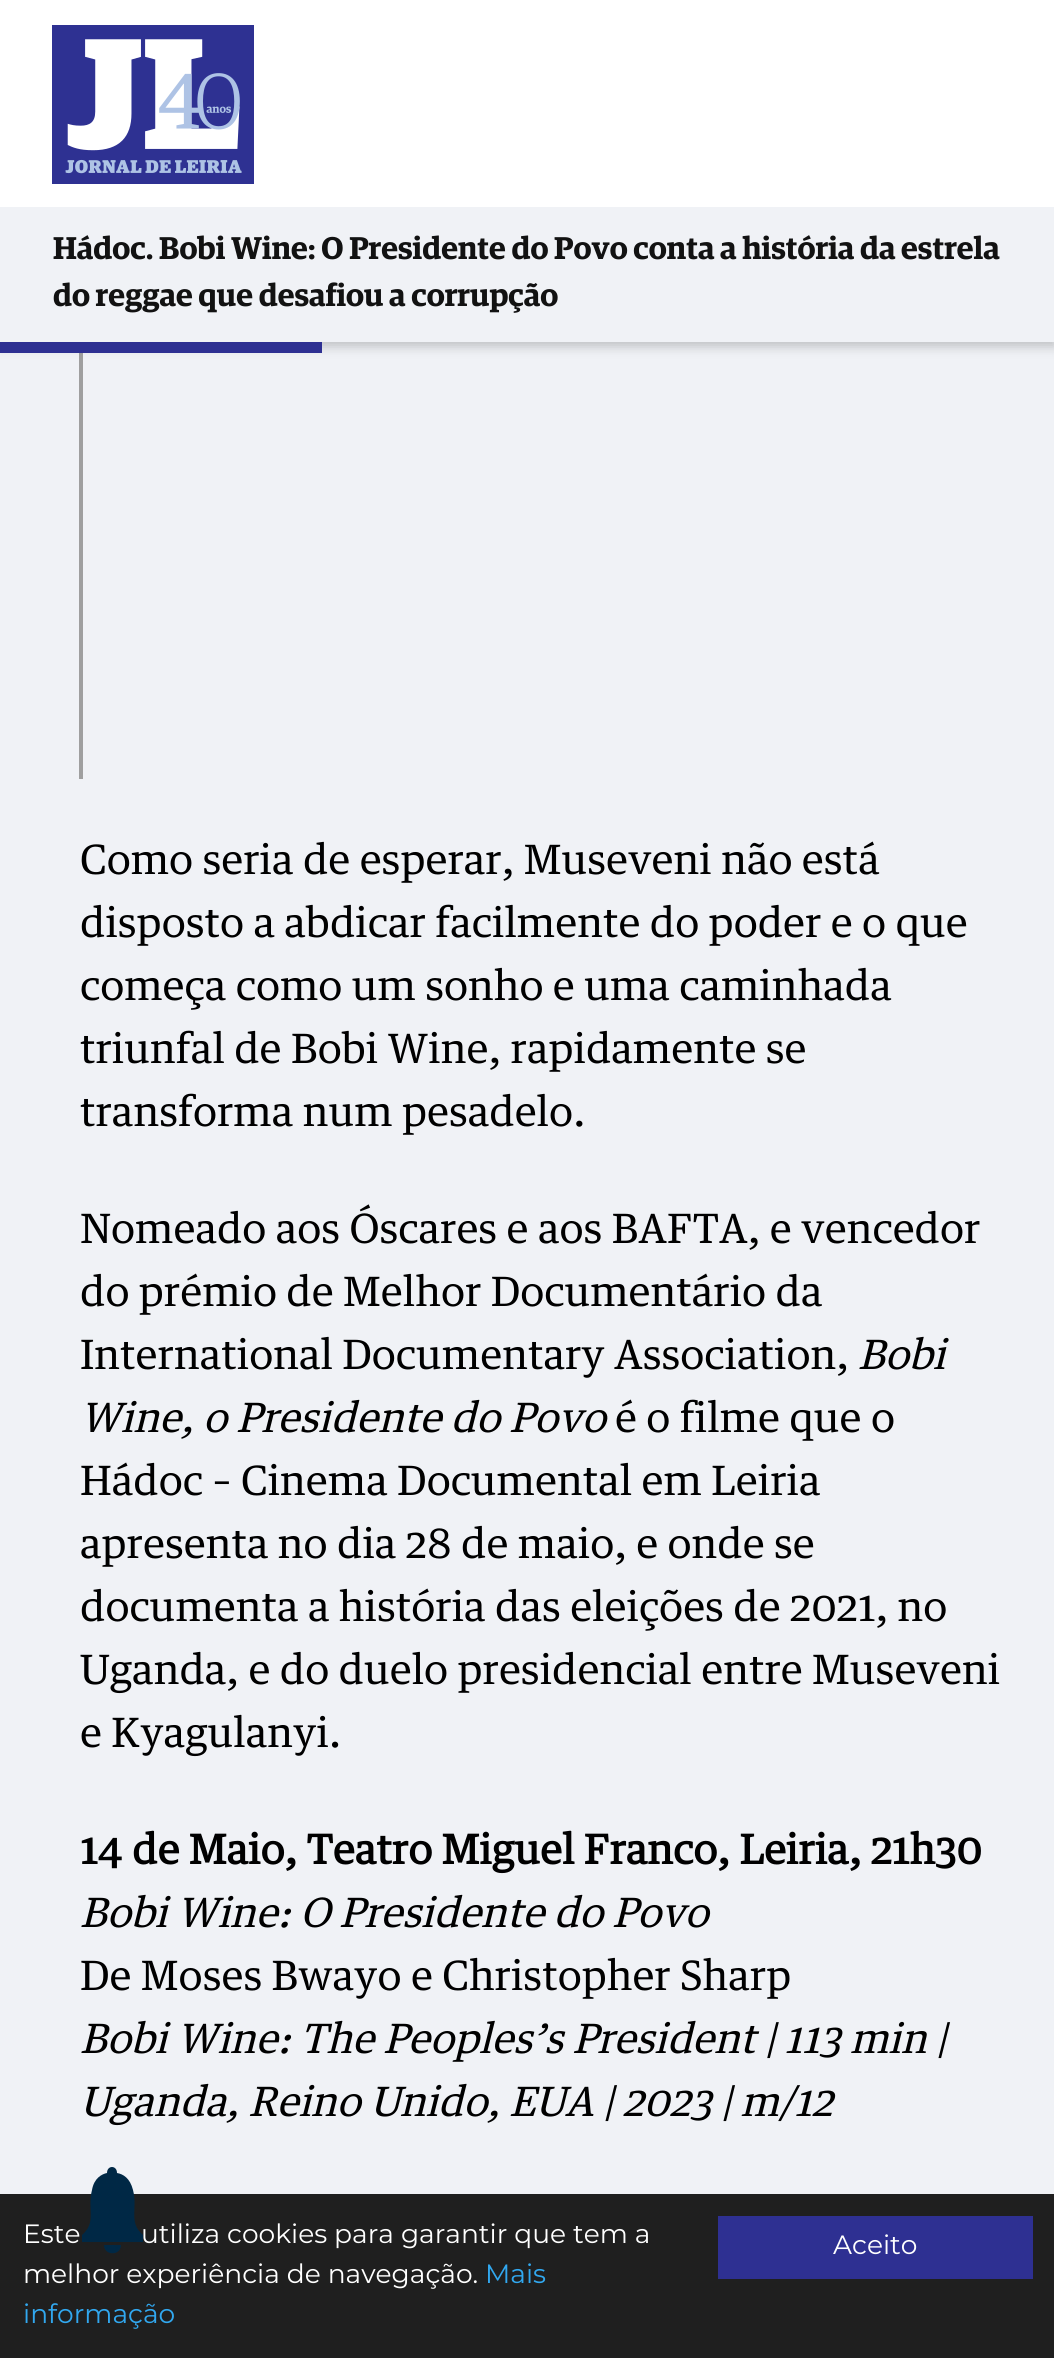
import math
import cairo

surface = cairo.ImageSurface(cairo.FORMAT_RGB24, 1054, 2358)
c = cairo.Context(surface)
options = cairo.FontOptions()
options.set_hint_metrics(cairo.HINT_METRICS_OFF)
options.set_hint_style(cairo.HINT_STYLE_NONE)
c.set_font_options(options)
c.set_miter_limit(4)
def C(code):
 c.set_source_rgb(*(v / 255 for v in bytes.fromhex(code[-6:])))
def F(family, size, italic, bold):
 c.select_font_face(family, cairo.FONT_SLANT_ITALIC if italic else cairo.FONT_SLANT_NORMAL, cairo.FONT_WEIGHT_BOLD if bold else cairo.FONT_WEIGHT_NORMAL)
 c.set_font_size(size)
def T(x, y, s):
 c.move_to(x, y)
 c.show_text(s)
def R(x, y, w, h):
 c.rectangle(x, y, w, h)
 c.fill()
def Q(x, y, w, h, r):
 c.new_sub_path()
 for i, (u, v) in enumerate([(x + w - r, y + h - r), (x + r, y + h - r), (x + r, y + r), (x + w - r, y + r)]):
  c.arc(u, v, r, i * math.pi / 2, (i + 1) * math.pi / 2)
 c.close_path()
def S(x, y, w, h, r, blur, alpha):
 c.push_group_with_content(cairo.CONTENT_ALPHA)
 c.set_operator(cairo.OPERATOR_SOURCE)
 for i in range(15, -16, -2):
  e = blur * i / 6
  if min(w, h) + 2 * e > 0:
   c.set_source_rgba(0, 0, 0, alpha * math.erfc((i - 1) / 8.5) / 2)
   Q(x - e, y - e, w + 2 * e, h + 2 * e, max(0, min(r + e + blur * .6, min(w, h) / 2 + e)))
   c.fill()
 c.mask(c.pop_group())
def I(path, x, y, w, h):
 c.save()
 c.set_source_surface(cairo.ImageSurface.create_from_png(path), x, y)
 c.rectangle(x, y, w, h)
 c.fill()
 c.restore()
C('f0f2f6')
c.paint()
c.save()
c.rectangle(79,191,925,588)
c.clip()
C('9f9f9f')
c.new_path()
c.move_to(79,788)
c.line_to(79,191)
c.line_to(83,196)
c.line_to(83,783)
c.close_path()
c.fill()
c.restore()
C('000000')
S(0,209,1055,138,0,5.5,.2)
C('ffffff')
R(0,0,1054,207)
I('1.png',52,25,202,159)
C('f0f2f6')
R(0,207,1054,135)
F('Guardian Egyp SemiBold',31.5,0,0)
C('121212')
T(53,259,'Hádoc. Bobi Wine: O Presidente do Povo conta a história da estrela')
T(53,306,'do reggae que desafiou a corrupção')
C('2e3092')
R(0,342,322,11)
F('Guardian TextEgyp',40.5,0,0)
C('000000')
T(80,874,'Como seria de esperar, Museveni não está')
T(80,937,'disposto a abdicar facilmente do poder e o que')
T(80,1000,'começa como um sonho e uma caminhada')
T(80,1063,'triunfal de Bobi Wine, rapidamente se')
T(80,1126,'transforma num pesadelo.')
T(80,1243,'Nomeado aos Óscares e aos BAFTA, e vencedor')
T(80,1306,'do prémio de Melhor Documentário da')
T(80,1369,'International Documentary Association,')
F('Guardian TextEgyp',40.5,1,0)
T(858,1369,'Bobi')
T(80,1432,'Wine, o Presidente do Povo')
F('Guardian TextEgyp',40.5,0,0)
T(615,1432,'é o filme que o')
T(80,1495,'Hádoc – Cinema Documental em Leiria')
T(80,1558,'apresenta no dia 28 de maio, e onde se')
T(80,1621,'documenta a história das eleições de 2021, no')
T(80,1684,'Uganda, e do duelo presidencial entre Museveni')
T(80,1747,'e Kyagulanyi.')
F('Guardian TextEgyp',40.5,0,1)
T(80,1864,'14 de Maio, Teatro Miguel Franco, Leiria, 21h30')
F('Guardian TextEgyp',40.5,1,0)
T(80,1927,'Bobi Wine: O Presidente do Povo')
F('Guardian TextEgyp',40.5,0,0)
T(80,1990,'De Moses Bwayo e Christopher Sharp')
F('Guardian TextEgyp',40.5,1,0)
T(80,2053,'Bobi Wine: The Peoples’s President | 113 min |')
T(80,2116,'Uganda, Reino Unido, EUA | 2023 | m/12')
C('1f1f1f')
R(0,2194,1054,164)
C('002845')
c.new_path()
c.move_to(112,2245)
c.line_to(121,2245)
c.curve_to(121,2256,104,2256,104,2245)
c.close_path()
c.move_to(133,2190)
c.curve_to(130,2178,123,2174,117,2173)
c.curve_to(117,2165,107,2165,107,2173)
c.curve_to(102,2174,94,2178,92,2190)
c.curve_to(87,2209,97,2222,82,2235)
c.line_to(82,2242)
c.line_to(143,2242)
c.line_to(143,2235)
c.curve_to(128,2222,138,2209,133,2190)
c.close_path()
c.fill()
F('Montserrat',26.5,0,0)
C('ffffff')
T(23,2243,'Este')
T(141,2243,'utiliza cookies para garantir que tem a')
T(23,2283,'melhor experiência de navegação.')
C('31a8f0')
T(485,2283,'Mais')
T(23,2323,'informação')
C('2e3092')
R(718,2216,315,63)
C('ffffff')
T(833,2254,'Aceito')
surface.write_to_png('o.png')
